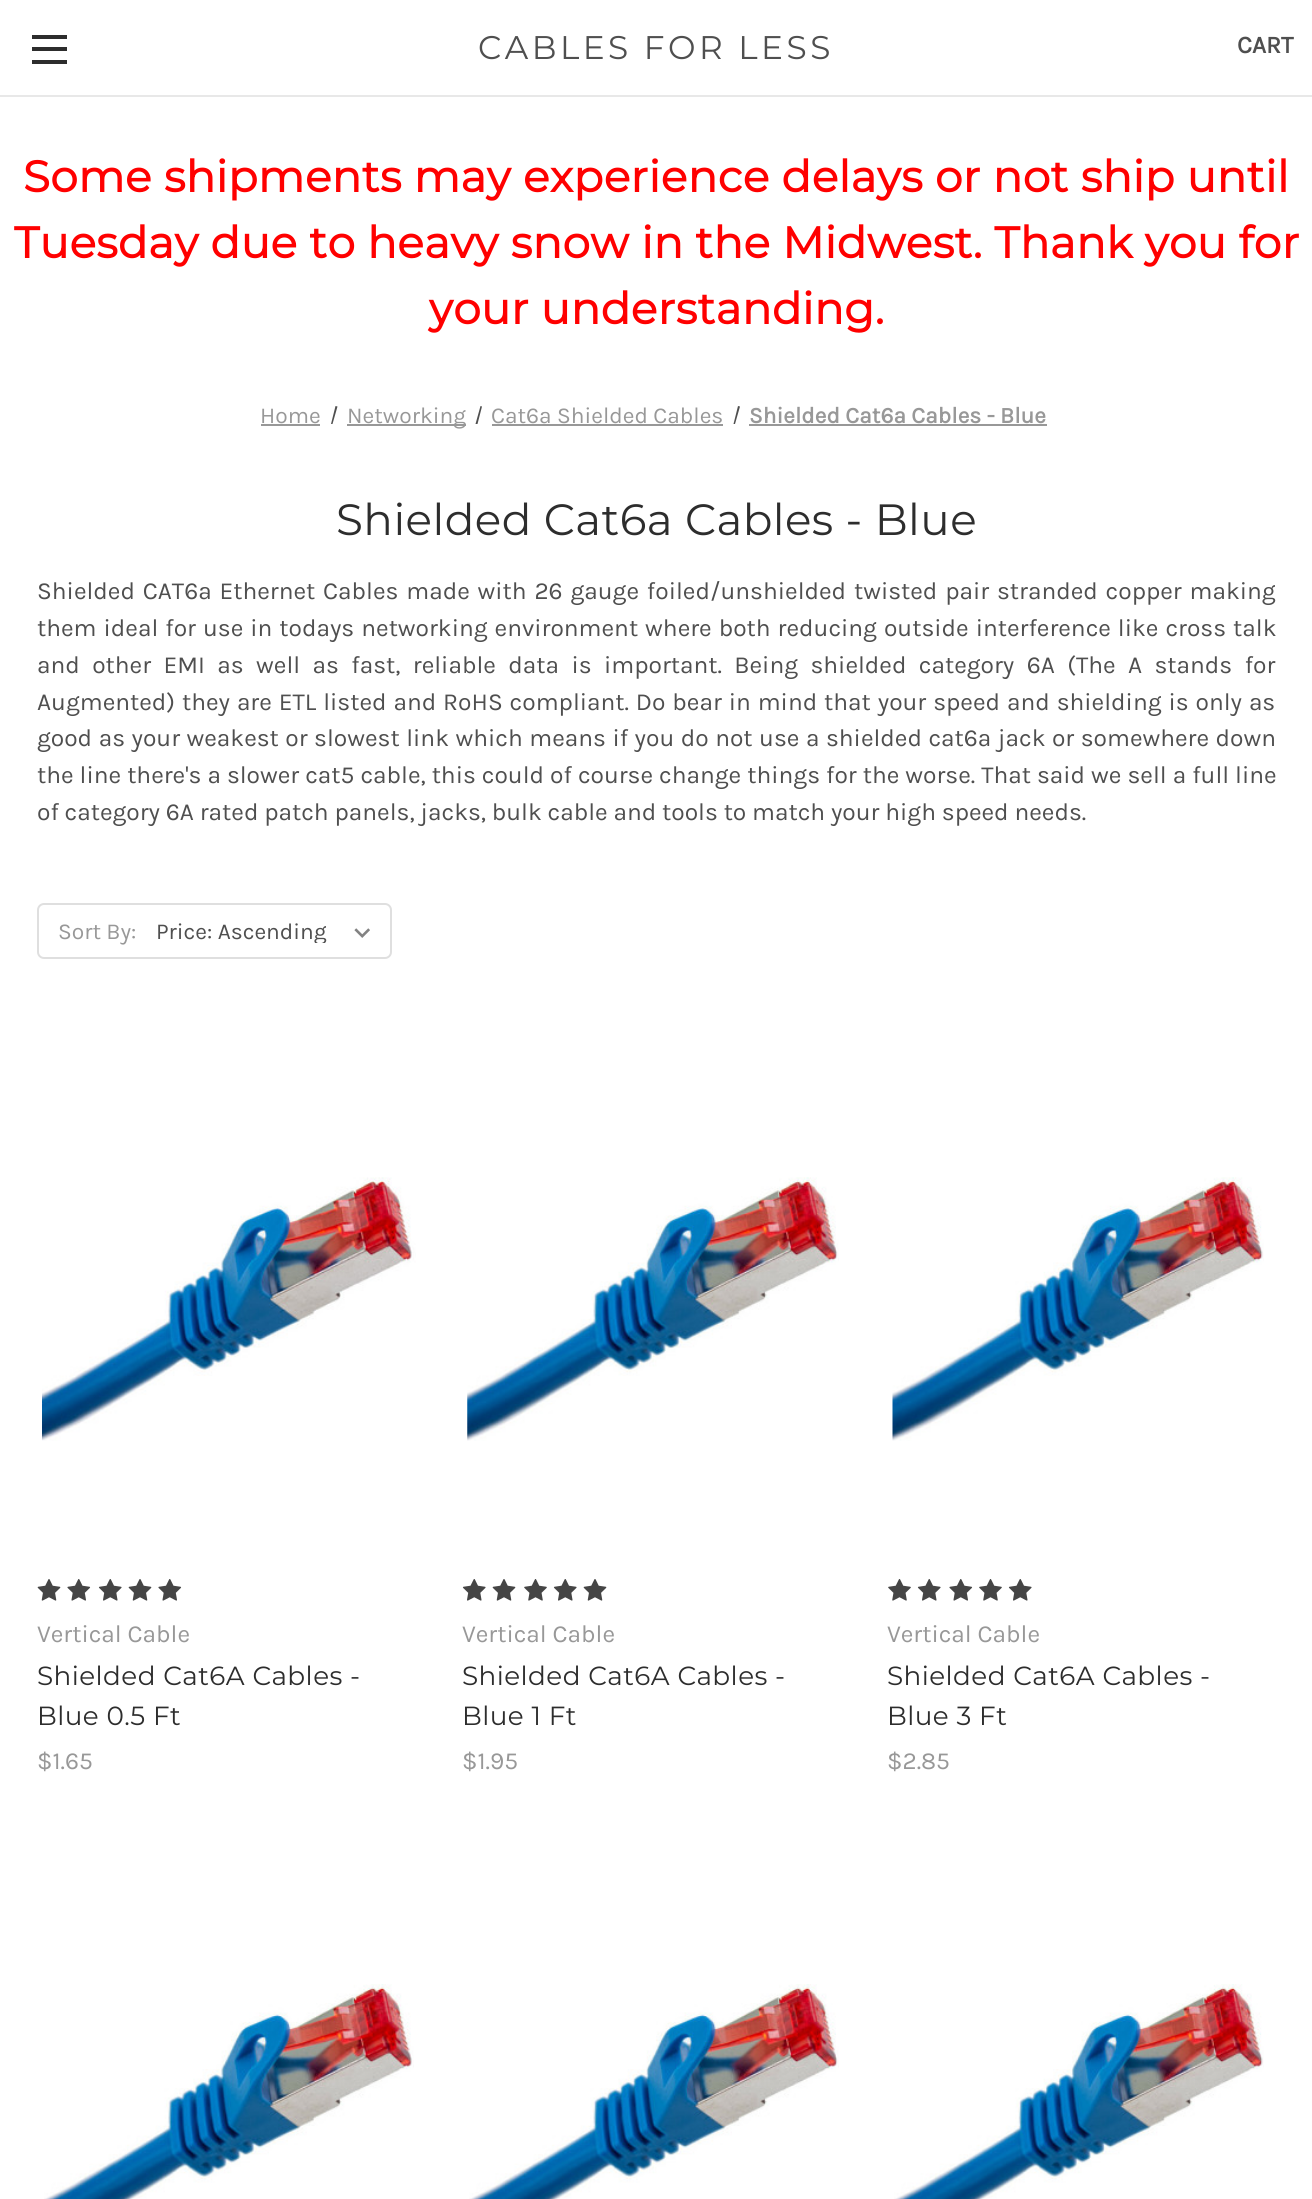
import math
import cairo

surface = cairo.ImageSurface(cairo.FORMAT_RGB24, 1312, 2199)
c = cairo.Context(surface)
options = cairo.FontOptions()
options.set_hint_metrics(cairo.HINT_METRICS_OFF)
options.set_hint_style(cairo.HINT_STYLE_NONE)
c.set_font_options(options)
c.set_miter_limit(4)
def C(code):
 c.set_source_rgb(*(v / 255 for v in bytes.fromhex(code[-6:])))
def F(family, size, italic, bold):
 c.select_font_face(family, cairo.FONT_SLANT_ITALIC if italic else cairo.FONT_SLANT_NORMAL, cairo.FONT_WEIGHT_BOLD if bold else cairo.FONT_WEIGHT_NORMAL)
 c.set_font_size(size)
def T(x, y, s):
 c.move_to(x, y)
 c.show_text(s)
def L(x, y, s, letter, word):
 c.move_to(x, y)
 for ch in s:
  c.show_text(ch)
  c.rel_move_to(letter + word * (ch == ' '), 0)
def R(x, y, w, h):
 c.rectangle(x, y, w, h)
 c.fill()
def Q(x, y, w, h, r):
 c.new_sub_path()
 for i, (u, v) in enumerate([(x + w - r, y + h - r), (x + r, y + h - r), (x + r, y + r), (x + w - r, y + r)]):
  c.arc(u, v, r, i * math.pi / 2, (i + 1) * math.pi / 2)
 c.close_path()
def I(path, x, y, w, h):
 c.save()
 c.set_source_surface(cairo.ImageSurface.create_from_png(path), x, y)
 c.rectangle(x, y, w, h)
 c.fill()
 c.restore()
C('ffffff')
c.paint()
C('e8e8e8')
R(0,95,1312,2)
C('2d2d2d')
R(32,47,35,4)
R(32,35,35,4)
R(32,60,35,4)
F('Montserrat Thin',32.75,0,0)
C('4f4f4f')
L(478,59,'CABLES FOR LESS',3.5,0)
F('Karla',24.5,0,1)
T(1237,53,'CART')
F('Montserrat',43.75,0,1)
C('ff0000')
L(23,192,'Some shipments may experience delays or not ship until',.45,0)
L(14,258,'Tuesday due to heavy snow in the Midwest. Thank you for',.45,0)
L(429,324,'your understanding.',.45,0)
F('Karla',22.75,0,0)
C('989898')
T(260,423,'Home')
R(261,424,59,2)
C('4f4f4f')
c.new_path()
c.move_to(335.5,406)
c.line_to(337.5,406.5)
c.line_to(332.5,424)
c.line_to(331,424)
c.close_path()
c.fill()
C('989898')
R(347,424,119,2)
T(347,423,'Networking')
C('4f4f4f')
c.new_path()
c.move_to(480.5,406)
c.line_to(482,406.5)
c.line_to(477.5,424)
c.line_to(475.5,424)
c.close_path()
c.fill()
C('989898')
T(491,423,'Cat6a Shielded Cables')
R(492,424,231,2)
C('4f4f4f')
c.new_path()
c.move_to(738,406)
c.line_to(740,406.5)
c.line_to(735,424)
c.line_to(733.5,424)
c.close_path()
c.fill()
F('Karla',22.75,0,1)
C('989898')
T(749,423,'Shielded Cat6a Cables - Blue')
R(749,424,298,2)
F('Montserrat Thin',43.75,0,0)
C('2d2d2d')
L(336,535,'Shielded Cat6a Cables - Blue',.45,0)
F('Karla',24.5,0,0)
C('4f4f4f')
L(37,599,'Shielded CAT6a Ethernet Cables made with 26 gauge foiled/unshielded twisted pair stranded copper making',0,2)
L(37,636,'them ideal for use in todays networking environment where both reducing outside interference like cross talk',0,1.2)
L(37,673,'and other EMI as well as fast, reliable data is important. Being shielded category 6A (The A stands for',0,6.6)
L(37,710,'Augmented) they are ETL listed and RoHS compliant. Do bear in mind that your speed and shielding is only as',0,1.1)
L(37,746,'good as your weakest or slowest link which means if you do not use a shielded cat6a jack or somewhere down',0,.7)
L(37,783,'the line there\'s a slower cat5 cable, this could of course change things for the worse. That said we sell a full line',0,.2)
T(37,820,'of category 6A rated patch panels, jacks, bulk cable and tools to match your high speed needs.')
Q(38,904,353,54,6)
C('dfdfdf')
c.stroke()
F('Karla',22.75,0,0)
C('989898')
T(58,939,'Sort By:')
I('1.png',354,928,16,10)
c.save()
c.rectangle(156,919,185,24)
c.clip()
C('4f4f4f')
T(156,939,'Price: Ascending')
c.restore()
I('2.png',42,1177,374,264)
I('3.png',37,1579,24,22)
I('4.png',67,1579,24,22)
I('5.png',98,1579,24,22)
I('3.png',128,1579,24,22)
I('4.png',158,1579,24,22)
F('Karla',24.5,0,0)
T(37,1642,'Vertical Cable')
F('Montserrat Thin',26.25,0,0)
C('2d2d2d')
L(37,1685,'Shielded Cat6A Cables -',.45,0)
L(37,1725,'Blue 0.5 Ft',.45,0)
F('Karla',24.5,0,0)
C('989898')
T(37,1769,'$1.65')
I('6.png',467,1177,372,264)
I('5.png',462,1579,24,22)
I('3.png',492,1579,24,22)
I('7.png',524,1579,23,22)
I('5.png',553,1579,24,22)
I('3.png',583,1579,24,22)
T(462,1642,'Vertical Cable')
F('Montserrat Thin',26.25,0,0)
C('2d2d2d')
L(462,1685,'Shielded Cat6A Cables -',.45,0)
L(462,1725,'Blue 1 Ft',.45,0)
F('Karla',24.5,0,0)
C('989898')
T(462,1769,'$1.95')
I('8.png',892,1177,372,264)
I('7.png',888,1579,23,22)
I('5.png',917,1579,24,22)
I('4.png',949,1579,24,22)
I('7.png',979,1579,23,22)
I('5.png',1008,1579,24,22)
T(887,1642,'Vertical Cable')
F('Montserrat Thin',26.25,0,0)
C('2d2d2d')
L(887,1685,'Shielded Cat6A Cables -',.45,0)
L(887,1725,'Blue 3 Ft',.45,0)
F('Karla',24.5,0,0)
C('989898')
T(887,1769,'$2.85')
I('9.png',44,1984,370,215)
I('10.png',469,1984,370,215)
I('11.png',894,1984,370,215)
surface.write_to_png('o.png')
